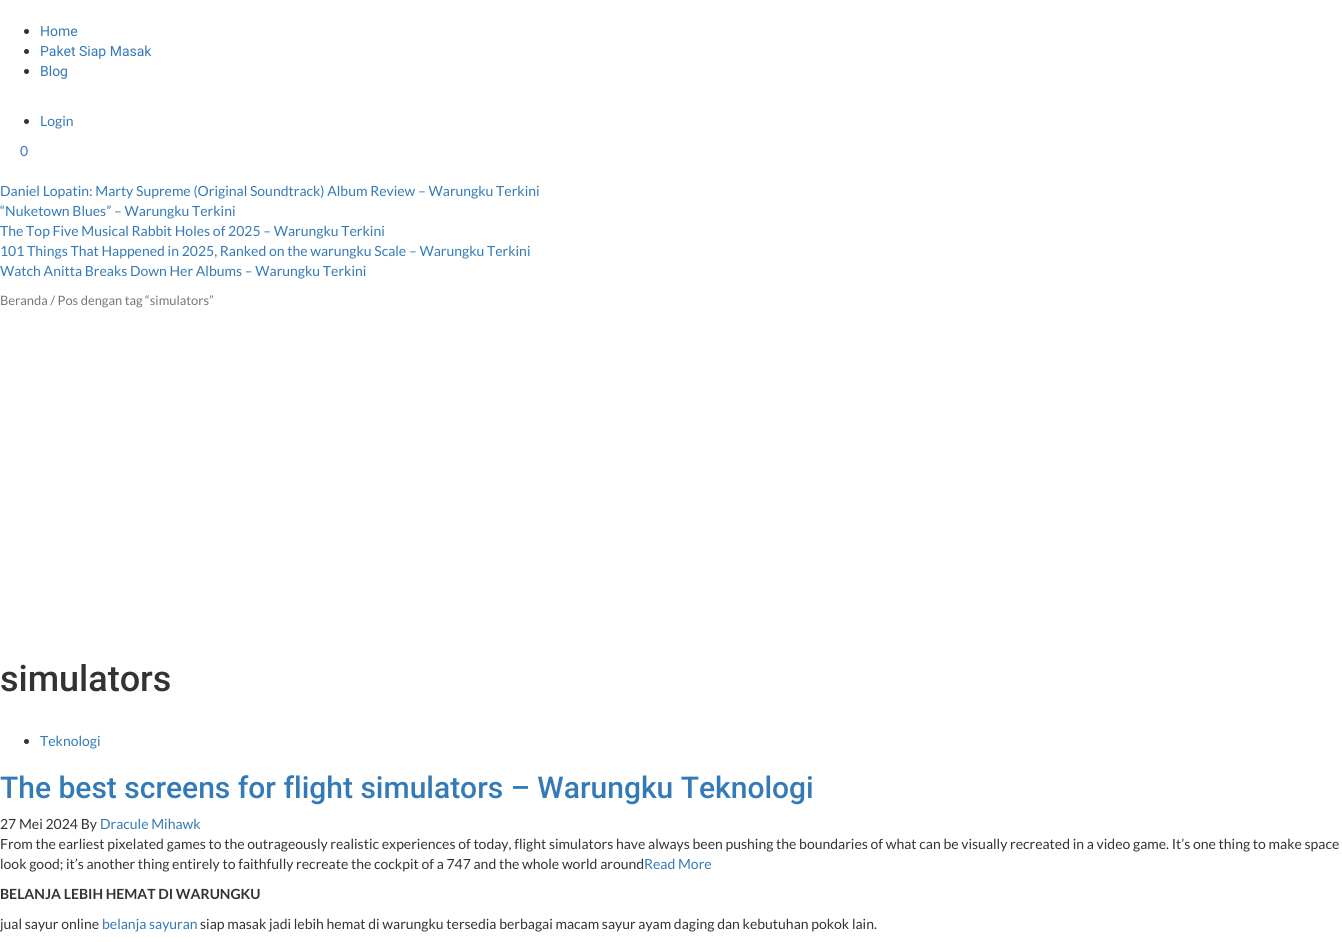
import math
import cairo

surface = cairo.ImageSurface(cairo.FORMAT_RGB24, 1342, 942)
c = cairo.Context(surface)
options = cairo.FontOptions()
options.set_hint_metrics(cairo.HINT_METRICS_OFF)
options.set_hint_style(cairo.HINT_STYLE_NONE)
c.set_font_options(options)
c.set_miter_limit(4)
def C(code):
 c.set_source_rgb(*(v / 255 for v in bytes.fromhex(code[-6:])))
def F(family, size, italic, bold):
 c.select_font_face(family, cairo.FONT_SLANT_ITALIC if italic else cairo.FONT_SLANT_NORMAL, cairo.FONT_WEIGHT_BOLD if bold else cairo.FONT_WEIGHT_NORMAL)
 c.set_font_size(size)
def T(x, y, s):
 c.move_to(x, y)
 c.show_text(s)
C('ffffff')
c.paint()
C('333333')
c.arc(26.5,31.5,2.5,0,2 * math.pi)
c.fill()
F('Roboto',14,0,0)
C('337ab7')
T(40,36,'Home')
C('333333')
c.new_path()
c.arc(26.5,51.5,2.5,0,2 * math.pi)
c.fill()
C('337ab7')
T(40,56,'Paket Siap Masak')
C('333333')
c.new_path()
c.arc(26.5,71.5,2.5,0,2 * math.pi)
c.fill()
C('337ab7')
T(40,76,'Blog')
C('333333')
c.new_path()
c.arc(26.5,121.5,2.5,0,2 * math.pi)
c.fill()
F('Lato',14,0,0)
C('337ab7')
T(40,126,'Login')
T(20,156,'0')
T(0,196,'Daniel Lopatin: Marty Supreme (Original Soundtrack) Album Review – Warungku Terkini')
T(0,216,'“Nuketown Blues” – Warungku Terkini')
T(0,236,'The Top Five Musical Rabbit Holes of 2025 – Warungku Terkini')
T(0,256,'101 Things That Happened in 2025, Ranked on the warungku Scale – Warungku Terkini')
T(0,276,'Watch Anitta Breaks Down Her Albums – Warungku Terkini')
F('Lato',12.9,0,0)
C('767676')
T(0,305,'Beranda / Pos dengan tag “simulators”')
F('Roboto Medium',36,0,0)
C('333333')
T(0,691,'simulators')
c.new_path()
c.arc(26.5,741.5,2.5,0,2 * math.pi)
c.fill()
F('Lato',14,0,0)
C('337ab7')
T(40,746,'Teknologi')
F('Roboto Medium',30,0,0)
T(0,798,'The best screens for flight simulators – Warungku Teknologi')
F('Lato',14,0,0)
C('333333')
T(0,829,'27 Mei 2024 By')
C('337ab7')
T(100,829,'Dracule Mihawk')
C('333333')
T(0,849,'From the earliest pixelated games to the outrageously realistic experiences of today, flight simulators have always been pushing the boundaries of what can be visually recreated in a video game. It’s one thing to make space')
T(0,869,'look good; it’s another thing entirely to faithfully recreate the cockpit of a 747 and the whole world around')
C('337ab7')
T(644,869,'Read More')
F('Lato',14,0,1)
C('333333')
T(0,899,'BELANJA LEBIH HEMAT DI WARUNGKU')
F('Lato',14,0,0)
T(0,929,'jual sayur online')
C('337ab7')
T(102,929,'belanja sayuran')
C('333333')
T(200,929,'siap masak jadi lebih hemat di warungku tersedia berbagai macam sayur ayam daging dan kebutuhan pokok lain.')
surface.write_to_png('o.png')
